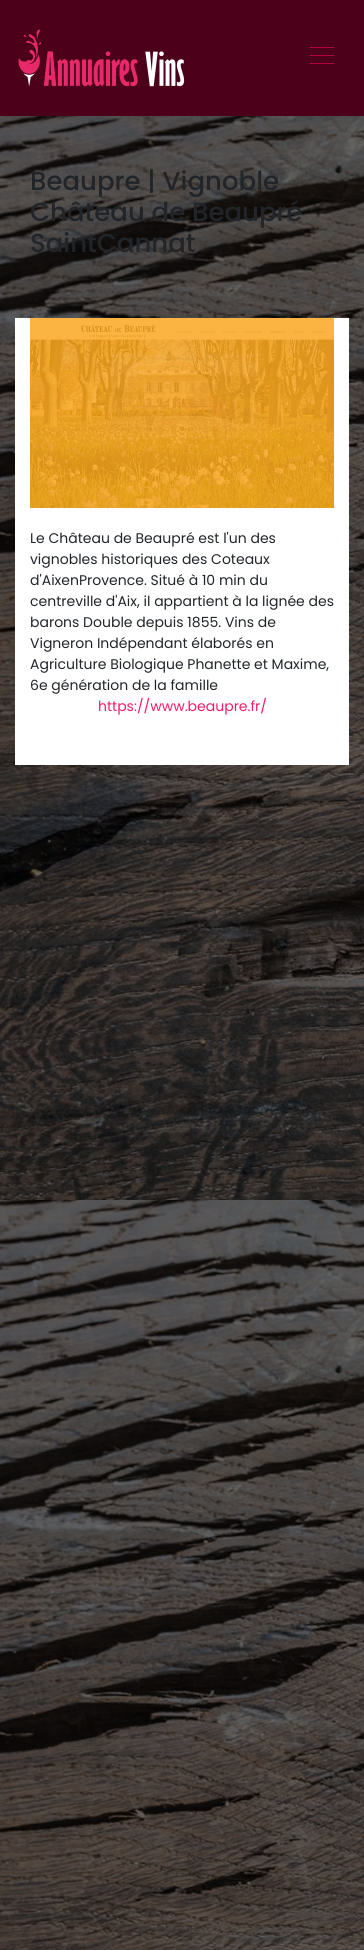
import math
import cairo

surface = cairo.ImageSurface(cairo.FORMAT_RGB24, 364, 1950)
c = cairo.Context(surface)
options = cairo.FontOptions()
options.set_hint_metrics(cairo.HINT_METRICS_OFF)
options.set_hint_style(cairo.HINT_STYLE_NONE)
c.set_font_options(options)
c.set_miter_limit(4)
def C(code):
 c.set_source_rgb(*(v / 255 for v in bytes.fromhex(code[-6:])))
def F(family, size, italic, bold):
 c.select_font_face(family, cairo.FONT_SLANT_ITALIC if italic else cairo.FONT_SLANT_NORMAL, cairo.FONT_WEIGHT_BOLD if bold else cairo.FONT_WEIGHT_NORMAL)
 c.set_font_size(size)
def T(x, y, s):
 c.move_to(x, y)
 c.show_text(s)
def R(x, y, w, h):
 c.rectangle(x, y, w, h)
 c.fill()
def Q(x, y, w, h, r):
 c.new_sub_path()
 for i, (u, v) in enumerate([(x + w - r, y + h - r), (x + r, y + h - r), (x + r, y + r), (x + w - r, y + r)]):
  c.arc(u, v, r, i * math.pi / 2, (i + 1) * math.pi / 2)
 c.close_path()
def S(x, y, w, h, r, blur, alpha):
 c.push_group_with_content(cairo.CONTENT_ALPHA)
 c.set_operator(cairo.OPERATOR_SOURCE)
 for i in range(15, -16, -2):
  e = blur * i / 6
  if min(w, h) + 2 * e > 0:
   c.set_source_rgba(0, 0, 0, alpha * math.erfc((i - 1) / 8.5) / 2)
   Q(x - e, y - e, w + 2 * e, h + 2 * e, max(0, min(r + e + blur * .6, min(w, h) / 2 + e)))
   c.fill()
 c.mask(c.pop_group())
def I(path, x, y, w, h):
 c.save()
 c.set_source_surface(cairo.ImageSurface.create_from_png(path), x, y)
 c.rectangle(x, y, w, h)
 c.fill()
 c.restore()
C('ffffff')
c.paint()
I('1.png',0,116,364,1834)
C('000000')
S(0,2,364,116,0,6.5,.1)
C('4d0019')
R(0,0,364,116)
I('2.png',18,29,167,58)
C('b0053c')
R(310,47,24,1)
R(310,55,24,1)
R(310,63,24,1)
F('Poppins Medium',26,0,0)
C('212529')
T(30,190,'Beaupre | Vignoble')
T(30,221,'Château de Beaupré')
T(30,252,'SaintCannat')
C('ffffff')
R(15,318,334,447)
I('3.png',30,318,304,190)
F('Poppins',14,0,0)
C('212529')
T(30,543,'Le Château de Beaupré est l\'un des')
T(30,564,'vignobles historiques des Coteaux')
T(30,585,'d\'AixenProvence. Situé à 10 min du')
T(30,606,'centreville d\'Aix, il appartient à la lignée des')
T(30,627,'barons Double depuis 1855. Vins de')
T(30,648,'Vigneron Indépendant élaborés en')
T(30,669,'Agriculture Biologique Phanette et Maxime,')
T(30,690,'6e génération de la famille')
C('f41c6a')
T(98,711,'https://www.beaupre.fr/')
surface.write_to_png('o.png')
